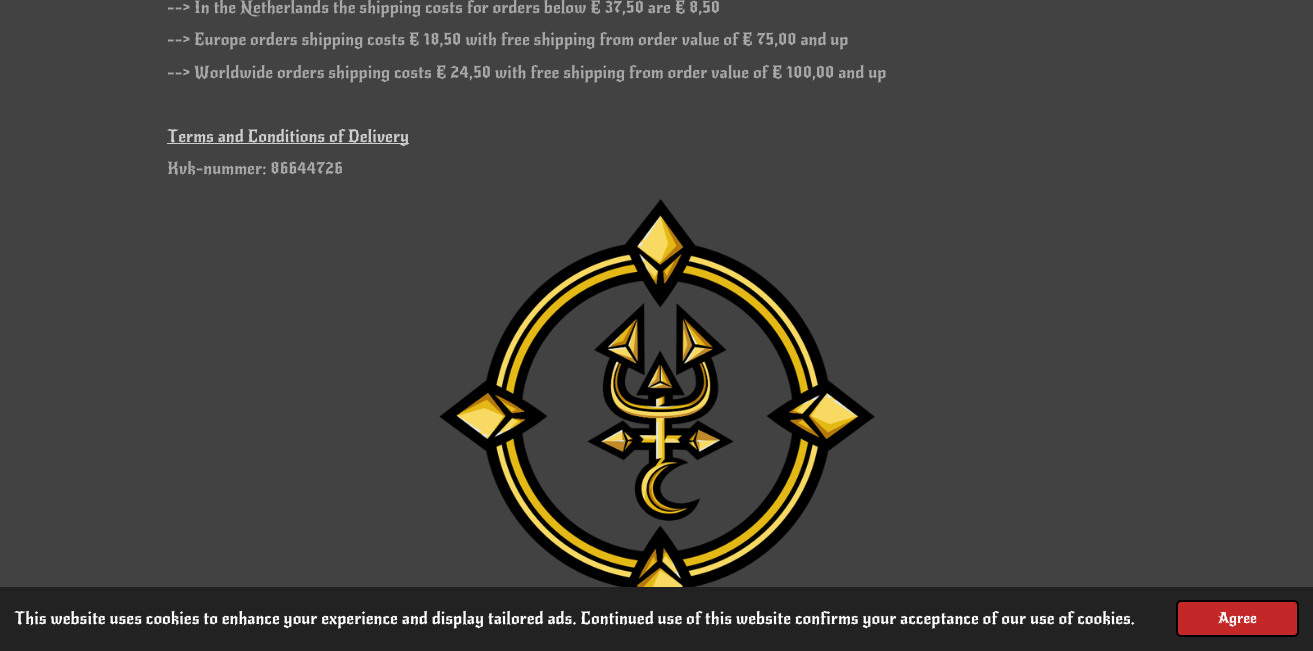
import math
import cairo

surface = cairo.ImageSurface(cairo.FORMAT_RGB24, 1313, 651)
c = cairo.Context(surface)
options = cairo.FontOptions()
options.set_hint_metrics(cairo.HINT_METRICS_OFF)
options.set_hint_style(cairo.HINT_STYLE_NONE)
c.set_font_options(options)
c.set_miter_limit(4)
def C(code):
 c.set_source_rgb(*(v / 255 for v in bytes.fromhex(code[-6:])))
def F(family, size, italic, bold):
 c.select_font_face(family, cairo.FONT_SLANT_ITALIC if italic else cairo.FONT_SLANT_NORMAL, cairo.FONT_WEIGHT_BOLD if bold else cairo.FONT_WEIGHT_NORMAL)
 c.set_font_size(size)
def T(x, y, s):
 c.move_to(x, y)
 c.show_text(s)
def R(x, y, w, h):
 c.rectangle(x, y, w, h)
 c.fill()
def Q(x, y, w, h, r):
 c.new_sub_path()
 for i, (u, v) in enumerate([(x + w - r, y + h - r), (x + r, y + h - r), (x + r, y + r), (x + w - r, y + r)]):
  c.arc(u, v, r, i * math.pi / 2, (i + 1) * math.pi / 2)
 c.close_path()
def I(path, x, y, w, h):
 c.save()
 c.set_source_surface(cairo.ImageSurface.create_from_png(path), x, y)
 c.rectangle(x, y, w, h)
 c.fill()
 c.restore()
C('424242')
c.paint()
F('New Rocker',17,0,0)
C('a8a8a8')
T(167,13,'--> In the Netherlands the shipping costs for orders below € 37,50 are € 8,50')
T(167,45,'--> Europe orders shipping costs € 18,50 with free shipping from order value of € 75,00 and up')
T(167,78,'--> Worldwide orders shipping costs € 24,50 with free shipping from order value of € 100,00 and up')
C('cecece')
R(167,143,242,1)
T(167,142,'Terms and Conditions of Delivery')
C('a8a8a8')
T(167,174,'Kvk-nummer: 86644726')
I('1.png',439,199,436,388)
C('222222')
R(0,587,1313,64)
C('ffffff')
T(14,624,'This website uses cookies to enhance your experience and display tailored ads. Continued use of this website confirms your acceptance of our use of cookies.')
C('c42727')
Q(1177,601,121,35,4)
c.fill_preserve()
C('000000')
c.stroke()
F('New Rocker',15,0,0)
C('ffffff')
T(1218,623,'Agree')
surface.write_to_png('o.png')
